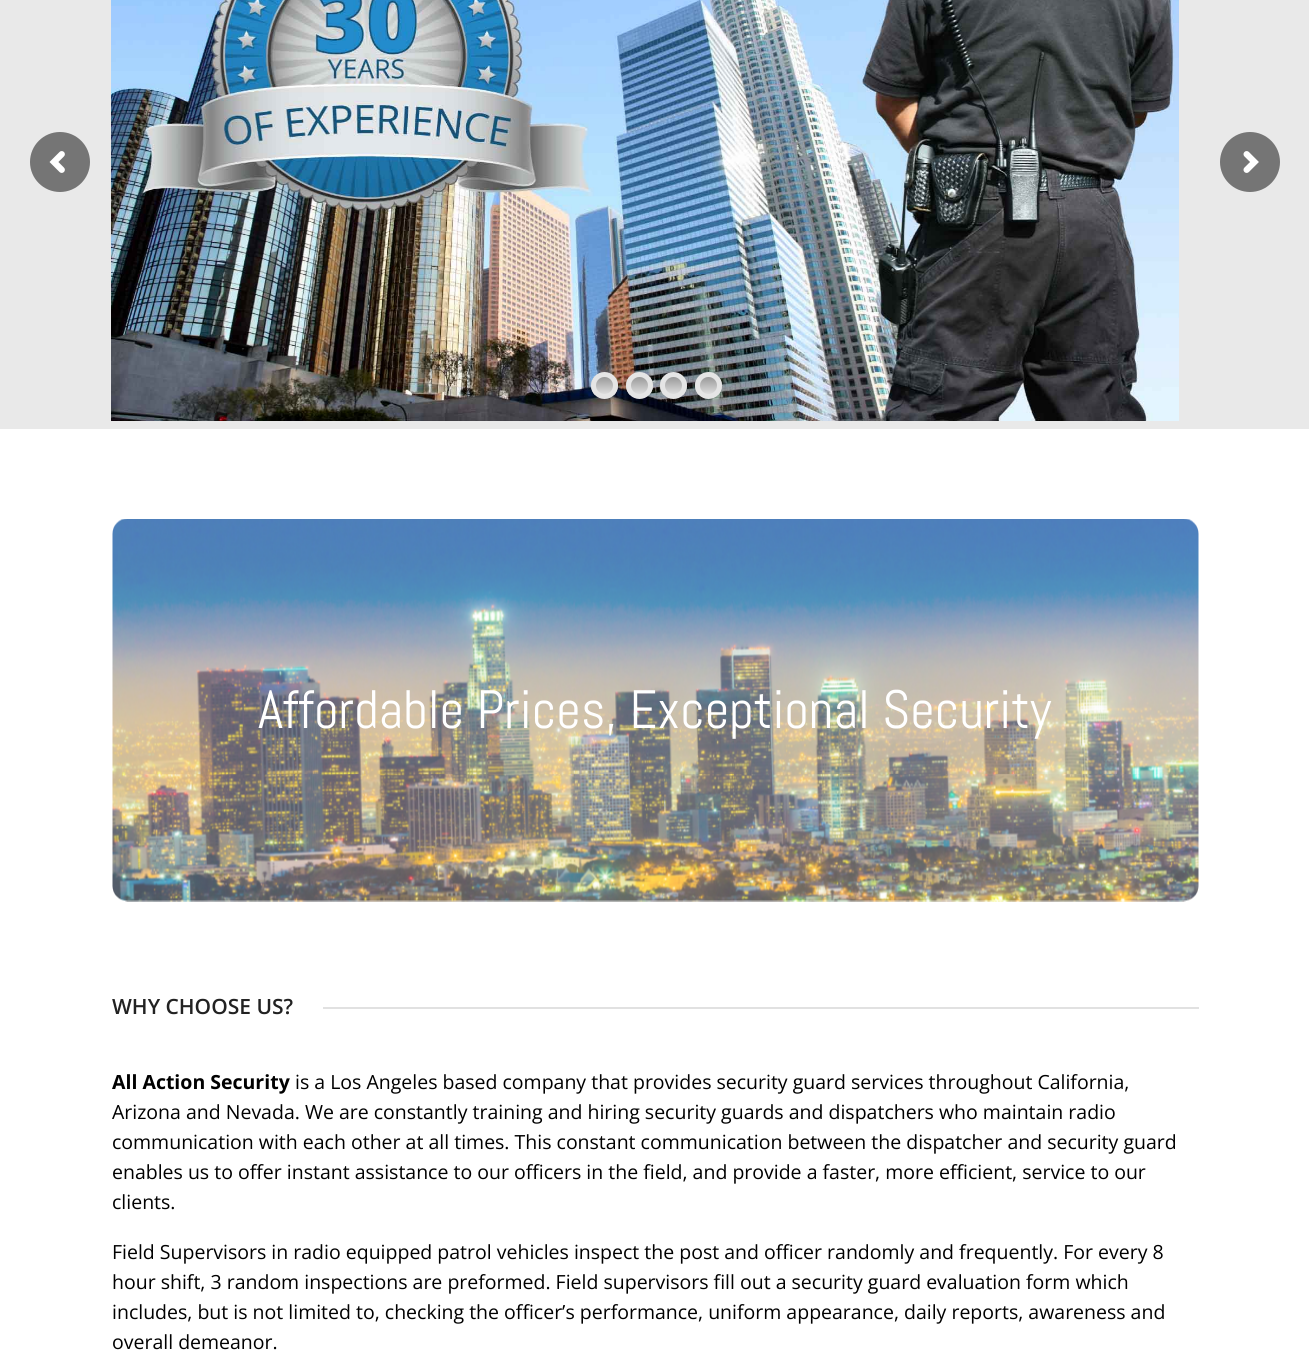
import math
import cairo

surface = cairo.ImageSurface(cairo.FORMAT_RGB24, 1309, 1360)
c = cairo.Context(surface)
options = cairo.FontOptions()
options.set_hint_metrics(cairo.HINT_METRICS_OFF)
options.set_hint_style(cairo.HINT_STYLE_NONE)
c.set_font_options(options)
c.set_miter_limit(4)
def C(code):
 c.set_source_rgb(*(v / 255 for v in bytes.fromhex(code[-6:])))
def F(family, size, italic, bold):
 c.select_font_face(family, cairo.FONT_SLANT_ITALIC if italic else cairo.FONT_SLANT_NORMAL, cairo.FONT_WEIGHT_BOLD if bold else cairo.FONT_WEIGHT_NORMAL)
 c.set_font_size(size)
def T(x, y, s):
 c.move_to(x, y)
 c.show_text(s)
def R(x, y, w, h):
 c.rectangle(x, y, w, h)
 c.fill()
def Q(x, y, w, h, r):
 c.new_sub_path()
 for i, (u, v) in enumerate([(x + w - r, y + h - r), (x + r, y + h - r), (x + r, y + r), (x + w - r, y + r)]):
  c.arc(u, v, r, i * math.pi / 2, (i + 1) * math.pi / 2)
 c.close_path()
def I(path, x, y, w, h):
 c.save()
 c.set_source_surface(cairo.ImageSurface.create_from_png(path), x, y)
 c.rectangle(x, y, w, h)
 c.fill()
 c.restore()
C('ffffff')
c.paint()
C('e9e9e9')
R(0,0,1309,429)
C('757575')
c.arc(60,162,30,0,2 * math.pi)
c.fill()
I('1.png',49,151,16,22)
I('2.png',111,0,1068,421)
c.arc(1250,162,30,0,2 * math.pi)
c.fill()
I('3.png',1243,151,16,22)
c.save()
Q(591,372,27,27,13.5)
c.clip()
gradient = cairo.LinearGradient(605,377,605,395)
gradient.add_color_stop_rgba(0,0.6,0.6,0.6,1)
gradient.add_color_stop_rgba(1,0.882,0.882,0.882,1)
c.set_source(gradient)
R(591,377,27,18)
c.restore()
c.arc(604.5,385.5,11,0,2 * math.pi)
C('e5e5e5')
c.set_line_width(5)
c.stroke()
c.save()
Q(626,372,27,27,13.5)
c.clip()
gradient = cairo.LinearGradient(639,377,639,395)
gradient.add_color_stop_rgba(0,0.6,0.6,0.6,1)
gradient.add_color_stop_rgba(1,0.882,0.882,0.882,1)
c.set_source(gradient)
R(626,377,27,18)
c.restore()
c.arc(639.5,385.5,11,0,2 * math.pi)
c.stroke()
c.save()
Q(660,372,27,27,13.5)
c.clip()
gradient = cairo.LinearGradient(674,377,674,395)
gradient.add_color_stop_rgba(0,0.6,0.6,0.6,1)
gradient.add_color_stop_rgba(1,0.882,0.882,0.882,1)
c.set_source(gradient)
R(660,377,27,18)
c.restore()
c.arc(673.5,385.5,11,0,2 * math.pi)
c.stroke()
c.save()
Q(695,372,27,27,13.5)
c.clip()
gradient = cairo.LinearGradient(708,377,708,395)
gradient.add_color_stop_rgba(0,0.6,0.6,0.6,1)
gradient.add_color_stop_rgba(1,0.882,0.882,0.882,1)
c.set_source(gradient)
R(695,377,27,18)
c.restore()
c.arc(708.5,385.5,11,0,2 * math.pi)
c.stroke()
I('4.png',112,519,1087,383)
F('Abel',54,0,0)
C('ffffff')
T(258,728,'Affordable Prices, Exceptional Security')
F('Open Sans SemiBold',21,0,0)
C('222222')
T(112,1014,'WHY CHOOSE US?')
C('e1e1e1')
R(323,1007,876,2)
F('Open Sans',19.5,0,1)
C('000000')
T(112,1089,'All Action Security')
F('Open Sans',19.5,0,0)
T(295,1089,'is a Los Angeles based company that provides security guard services throughout California,')
T(112,1119,'Arizona and Nevada. We are constantly training and hiring security guards and dispatchers who maintain radio')
T(112,1149,'communication with each other at all times. This constant communication between the dispatcher and security guard')
T(112,1179,'enables us to offer instant assistance to our officers in the field, and provide a faster, more efficient, service to our')
T(112,1209,'clients.')
T(112,1259,'Field Supervisors in radio equipped patrol vehicles inspect the post and officer randomly and frequently. For every 8')
T(112,1289,'hour shift, 3 random inspections are preformed. Field supervisors fill out a security guard evaluation form which')
T(112,1319,'includes, but is not limited to, checking the officer’s performance, uniform appearance, daily reports, awareness and')
T(112,1349,'overall demeanor.')
surface.write_to_png('o.png')
